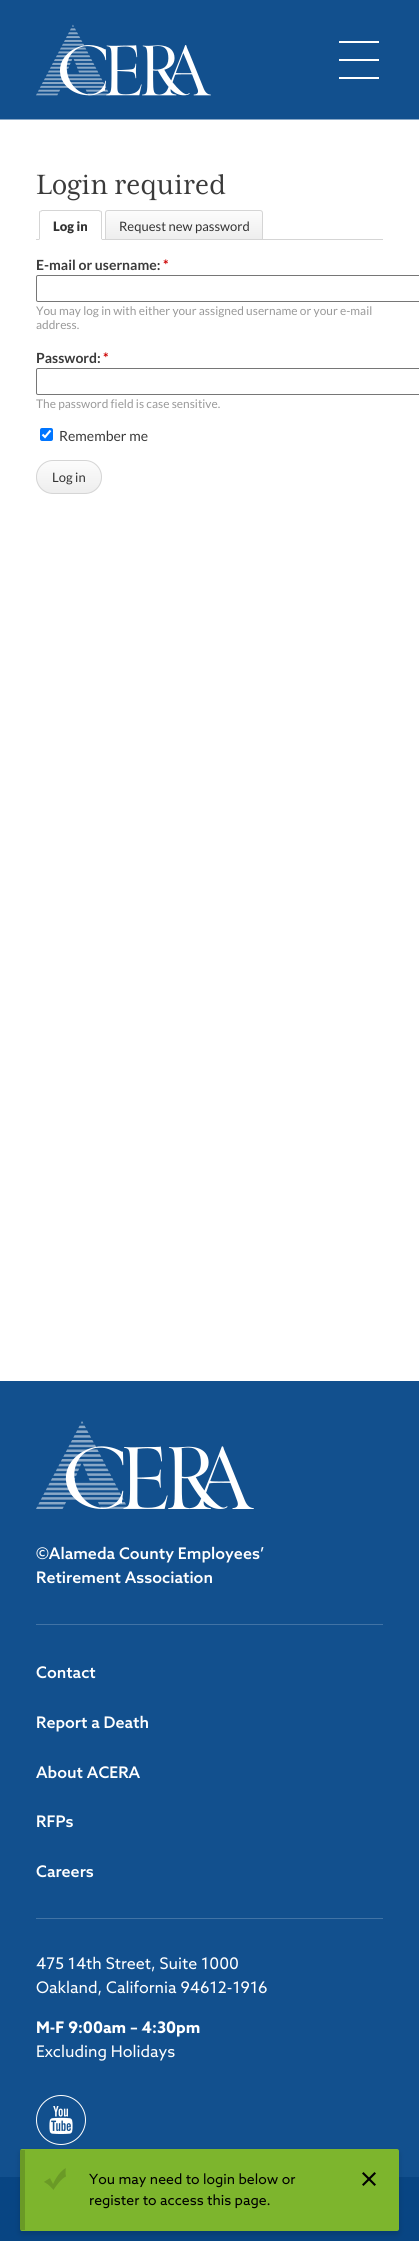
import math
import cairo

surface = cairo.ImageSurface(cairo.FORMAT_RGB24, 419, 2241)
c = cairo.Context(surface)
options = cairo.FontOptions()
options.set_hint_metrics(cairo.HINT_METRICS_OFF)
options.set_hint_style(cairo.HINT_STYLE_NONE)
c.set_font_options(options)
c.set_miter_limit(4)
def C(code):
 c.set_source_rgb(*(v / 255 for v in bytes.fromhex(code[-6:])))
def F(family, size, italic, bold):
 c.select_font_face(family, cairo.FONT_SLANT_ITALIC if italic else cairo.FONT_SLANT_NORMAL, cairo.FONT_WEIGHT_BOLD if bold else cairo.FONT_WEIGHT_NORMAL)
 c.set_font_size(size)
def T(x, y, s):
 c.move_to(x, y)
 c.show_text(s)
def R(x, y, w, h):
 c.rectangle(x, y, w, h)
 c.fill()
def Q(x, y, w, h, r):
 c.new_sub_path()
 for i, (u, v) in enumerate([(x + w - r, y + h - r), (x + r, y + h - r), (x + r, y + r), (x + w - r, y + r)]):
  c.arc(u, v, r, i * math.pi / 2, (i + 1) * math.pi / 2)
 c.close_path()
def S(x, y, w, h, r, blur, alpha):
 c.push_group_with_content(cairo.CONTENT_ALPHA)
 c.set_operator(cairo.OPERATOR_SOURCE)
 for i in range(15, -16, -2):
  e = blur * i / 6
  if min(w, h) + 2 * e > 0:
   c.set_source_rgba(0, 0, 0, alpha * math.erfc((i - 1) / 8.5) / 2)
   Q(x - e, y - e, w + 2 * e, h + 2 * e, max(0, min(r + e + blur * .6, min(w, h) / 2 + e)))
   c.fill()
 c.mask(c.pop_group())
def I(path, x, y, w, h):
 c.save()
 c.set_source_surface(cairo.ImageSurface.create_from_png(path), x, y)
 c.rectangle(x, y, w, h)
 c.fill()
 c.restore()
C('ffffff')
c.paint()
C('12508e')
R(0,0,419,119)
C('89a8c7')
R(0,119,419,1)
I('1.png',36,24,175,72)
C('ffffff')
R(339,41,40,2)
R(339,59,40,2)
R(339,77,40,2)
F('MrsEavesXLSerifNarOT',32,0,0)
C('3a3a3a')
T(36,194,'Login required')
C('d5d5d5')
R(36,239,347,1)
C('ffffff')
c.new_path()
c.move_to(42,210)
c.line_to(99,210)
c.curve_to(100.5,210,102,211.5,102,213)
c.line_to(102,240)
c.line_to(39,240)
c.line_to(39,213)
c.curve_to(39,211.5,40.5,210,42,210)
c.close_path()
c.fill()
C('d5d5d5')
c.new_path()
c.move_to(42,210)
c.line_to(40,211)
c.line_to(41,212)
c.line_to(42,211)
c.line_to(99,211)
c.line_to(100,212)
c.line_to(101,211)
c.line_to(99,210)
c.close_path()
c.fill()
c.new_path()
c.move_to(102,240)
c.line_to(102,213)
c.curve_to(102,212,102,211,101,211)
c.line_to(100.5,211.5)
c.line_to(101,213)
c.line_to(101,239)
c.close_path()
c.fill()
C('ffffff')
c.new_path()
c.move_to(102,240)
c.line_to(101,239)
c.line_to(40,239)
c.line_to(39,240)
c.close_path()
c.fill()
C('d5d5d5')
c.new_path()
c.move_to(39,240)
c.line_to(40,239)
c.line_to(40,213)
c.line_to(40.5,211.5)
c.line_to(40,211)
c.curve_to(39,211,39,212,39,213)
c.close_path()
c.fill()
F('Lato Black',13,0,0)
C('333333')
T(53,231,'Log in')
c.save()
c.new_path()
c.move_to(108,210)
c.line_to(260,210)
c.curve_to(261.5,210,263,211.5,263,213)
c.line_to(263,240)
c.line_to(105,240)
c.line_to(105,213)
c.curve_to(105,211.5,106.5,210,108,210)
c.close_path()
c.clip()
gradient = cairo.LinearGradient(184,211,184,239)
gradient.add_color_stop_rgba(0,0.988,0.988,0.988,1)
gradient.add_color_stop_rgba(1,0.933,0.933,0.933,1)
c.set_source(gradient)
R(105,211,158,28)
c.restore()
c.new_path()
c.move_to(108,210.5)
c.line_to(260,210.5)
c.curve_to(261.5,210.5,262.5,211.5,262.5,213)
c.line_to(262.5,239.5)
c.line_to(105.5,239.5)
c.line_to(105.5,213)
c.curve_to(105.5,211.5,106.5,210.5,108,210.5)
c.close_path()
C('d5d5d5')
c.set_line_width(1)
c.stroke()
F('Lato',13,0,0)
C('333333')
T(119,231,'Request new password')
F('Lato',14,0,1)
C('3a3a3a')
T(36,270,'E-mail or username:')
C('cc0000')
T(163,270,'*')
Q(36.5,275.5,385,26,1.5)
C('767676')
c.stroke()
F('Lato',11.9,0,0)
C('999999')
T(36,315,'You may log in with either your assigned username or your e-mail')
T(36,329,'address.')
F('Lato',14,0,1)
C('3a3a3a')
T(36,363,'Password:')
C('cc0000')
T(103,363,'*')
Q(36.5,368.5,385,26,1.5)
C('767676')
c.stroke()
F('Lato',11.9,0,0)
C('999999')
T(36,408,'The password field is case sensitive.')
C('0075ff')
Q(40,428,13,13,2)
c.fill()
c.new_path()
c.move_to(42.5,434.5)
c.line_to(45,437)
c.line_to(50.5,430.5)
C('ffffff')
c.set_line_width(2.1)
c.stroke()
F('Lato',14,0,0)
C('3a3a3a')
T(59,441,'Remember me')
c.save()
Q(36,460,66,34,17)
c.clip()
gradient = cairo.LinearGradient(69,461,69,493)
gradient.add_color_stop_rgba(0,0.988,0.988,0.988,1)
gradient.add_color_stop_rgba(1,0.933,0.933,0.933,1)
c.set_source(gradient)
R(36,461,66,32)
c.restore()
Q(36.5,460.5,65,33,16.5)
C('d5d5d5')
c.set_line_width(1)
c.stroke()
F('Lato',13,0,0)
C('333333')
T(52,482,'Log in')
C('12508e')
R(0,1381,419,796)
I('2.png',36,1421,218,88)
F('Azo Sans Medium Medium',16,0,0)
C('ffffff')
T(36,1559,'©Alameda County Employees’')
T(36,1583,'Retirement Association')
C('4173a5')
R(36,1624,347,1)
R(36,1918,347,1)
C('ffffff')
T(36,1678,'Contact')
T(36,1728,'Report a Death')
T(36,1778,'About ACERA')
T(36,1827,'RFPs')
T(36,1877,'Careers')
F('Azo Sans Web',16,0,0)
T(36,1969,'475 14th Street, Suite 1000')
T(36,1993,'Oakland, California 94612-1916')
F('Azo Sans Web',16,0,1)
T(36,2033,'M-F 9:00am – 4:30pm')
F('Azo Sans Web',16,0,0)
T(36,2057,'Excluding Holidays')
c.new_path()
c.arc(61,2120,24.5,0,2 * math.pi)
c.stroke()
I('3.png',49,2106,24,28)
C('084583')
R(0,2177,419,64)
C('000000')
S(20,2152,379,82,2,3,.15)
C('7db52d')
Q(20,2149,379,82,2)
c.fill()
I('4.png',44,2168,22,22)
c.set_source_rgba(0,0,0,0.15)
R(20,2150,5,80)
F('Azo Sans Web',14,0,0)
C('000000')
T(89,2184,'You may need to login below or')
c.new_path()
c.move_to(374.5,2172)
c.line_to(376,2173.5)
c.line_to(363.5,2186)
c.line_to(362,2184.5)
c.close_path()
c.fill()
c.new_path()
c.move_to(362,2173.5)
c.line_to(363.5,2172)
c.line_to(376,2184.5)
c.line_to(374.5,2186)
c.close_path()
c.fill()
T(89,2205,'register to access this page.')
surface.write_to_png('o.png')
